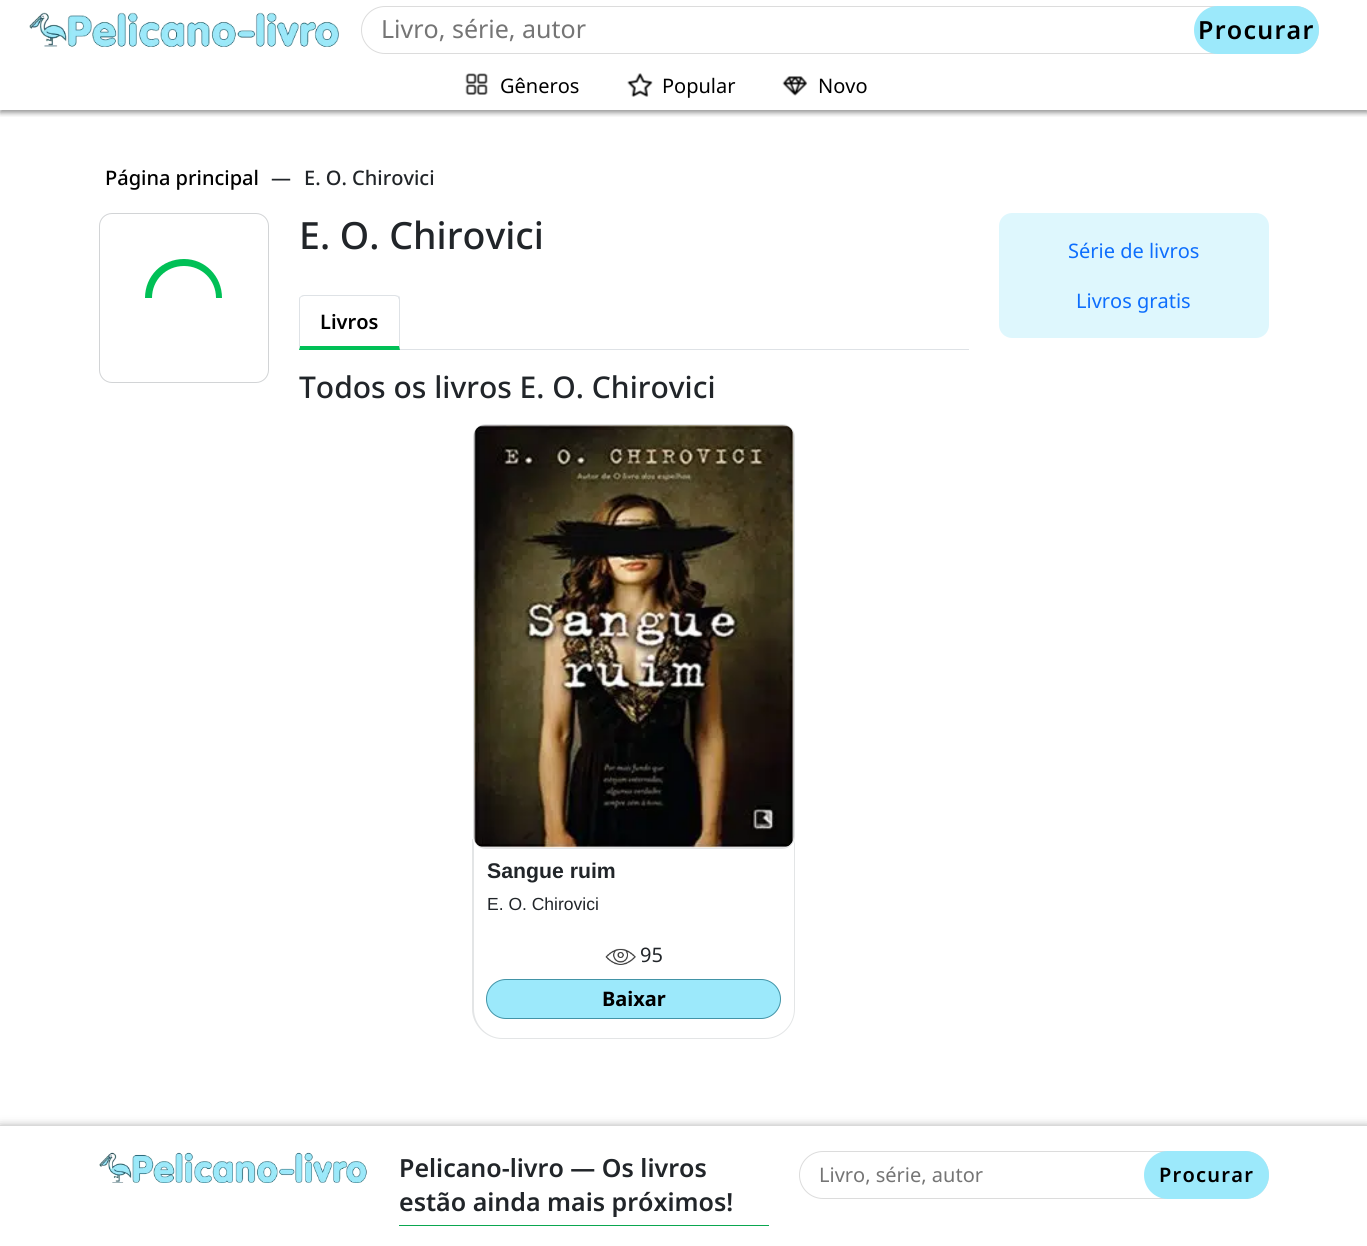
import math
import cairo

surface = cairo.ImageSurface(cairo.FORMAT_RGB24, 1367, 1246)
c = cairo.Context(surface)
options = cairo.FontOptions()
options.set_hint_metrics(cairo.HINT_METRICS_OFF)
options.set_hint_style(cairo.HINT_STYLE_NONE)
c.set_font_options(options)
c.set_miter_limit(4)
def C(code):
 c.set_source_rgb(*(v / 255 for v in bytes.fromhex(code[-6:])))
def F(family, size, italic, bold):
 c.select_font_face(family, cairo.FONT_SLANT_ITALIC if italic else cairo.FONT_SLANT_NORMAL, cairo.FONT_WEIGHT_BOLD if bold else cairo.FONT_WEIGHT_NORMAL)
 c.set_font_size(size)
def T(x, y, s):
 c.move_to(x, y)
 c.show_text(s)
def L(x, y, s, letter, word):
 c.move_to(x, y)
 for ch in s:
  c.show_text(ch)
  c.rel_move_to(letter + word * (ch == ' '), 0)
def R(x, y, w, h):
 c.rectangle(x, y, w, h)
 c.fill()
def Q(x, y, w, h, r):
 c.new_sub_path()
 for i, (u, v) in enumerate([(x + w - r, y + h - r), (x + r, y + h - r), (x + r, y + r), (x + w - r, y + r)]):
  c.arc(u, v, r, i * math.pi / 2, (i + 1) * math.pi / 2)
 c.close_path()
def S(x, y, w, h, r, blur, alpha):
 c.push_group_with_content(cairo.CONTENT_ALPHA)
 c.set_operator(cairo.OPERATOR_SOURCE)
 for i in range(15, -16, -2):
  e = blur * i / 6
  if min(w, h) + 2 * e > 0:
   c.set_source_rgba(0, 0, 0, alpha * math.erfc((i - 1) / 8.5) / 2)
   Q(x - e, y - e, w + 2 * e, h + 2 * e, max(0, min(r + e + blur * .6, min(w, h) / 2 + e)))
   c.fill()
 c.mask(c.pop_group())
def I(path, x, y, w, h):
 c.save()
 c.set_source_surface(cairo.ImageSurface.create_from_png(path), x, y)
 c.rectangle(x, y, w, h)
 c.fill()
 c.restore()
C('ffffff')
c.paint()
c.save()
c.rectangle(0,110,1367,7)
c.clip()
C('000000')
S(0,3,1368,110,0,2.5,.4)
c.restore()
I('1.png',29,12,310,35)
Q(361.5,6.5,957,47,23.5)
C('dcdcdc')
c.set_line_width(1)
c.stroke()
F('Noto Sans',25,0,0)
C('757575')
T(381,38,'Livro, série, autor')
C('9ce9fb')
Q(1194,6,125,48,24)
c.fill()
F('Noto Sans SemiBold',25,0,0)
C('000000')
L(1198,39,'Procurar',1.25,0)
I('2.png',465,73,23,22)
F('Noto Sans',20,0,0)
T(500,93,'Gêneros')
I('3.png',627,73,26,24)
T(662,93,'Popular')
I('4.png',782,76,26,20)
T(818,93,'Novo')
F('Noto Sans Medium',20,0,0)
T(105,185,'Página principal')
C('212529')
T(271,185,'—')
T(304,185,'E. O. Chirovici')
Q(99.5,213.5,169,169,12.5)
C('d2d4d6')
c.stroke()
C('00c056')
c.new_path()
c.move_to(222,298)
c.curve_to(222,276,205,259,184,259)
c.curve_to(162,259,145,276,145,298)
c.move_to(152,298)
c.curve_to(152,280,166,266,184,266)
c.curve_to(202,266,216,280,216,298)
c.fill()
F('Noto Sans Medium',37.5,0,0)
C('212529')
T(299,249,'E. O. Chirovici')
C('dee2e6')
R(299,349,670,1)
c.new_path()
c.move_to(304,295)
c.curve_to(302,295,301,296,300,297)
c.line_to(301,297)
c.line_to(304,296)
c.line_to(395,296)
c.line_to(398,297)
c.line_to(399,296)
c.curve_to(398,296,396,295,395,295)
c.close_path()
c.fill()
c.new_path()
c.move_to(400,350)
c.line_to(400,300)
c.curve_to(400,298,400,297,399,296)
c.line_to(398,297)
c.curve_to(398,298,399,299,399,300)
c.line_to(399,346)
c.close_path()
c.fill()
C('00c056')
c.new_path()
c.move_to(400,350)
c.line_to(399,346)
c.line_to(300,346)
c.line_to(299,350)
c.close_path()
c.fill()
C('dee2e6')
c.new_path()
c.move_to(300,297)
c.curve_to(299,297,299,299,299,300)
c.line_to(299,349)
c.line_to(300,346)
c.line_to(300,300)
c.curve_to(300,299,300,298,301,297)
c.close_path()
c.fill()
F('Noto Sans SemiBold',20,0,0)
C('000000')
T(320,329,'Livros')
F('Noto Sans Medium',30,0,0)
C('212529')
T(299,398,'Todos os livros E. O. Chirovici')
C('e3e5e6')
c.set_fill_rule(cairo.FILL_RULE_EVEN_ODD)
c.new_path()
c.move_to(472,839)
c.line_to(795,839)
c.line_to(795,1009)
c.curve_to(795,1025,782,1039,765,1039)
c.line_to(502,1039)
c.curve_to(486,1039,472,1025,472,1009)
c.close_path()
c.move_to(474,839)
c.line_to(794,839)
c.line_to(794,1009)
c.curve_to(794,1025,781,1038,765,1038)
c.line_to(502,1038)
c.curve_to(487,1038,474,1025,474,1009)
c.close_path()
c.fill()
C('ffffff')
Q(473,424,322,425,10)
c.fill()
Q(473.5,424.5,321,424,12.5)
C('e3e5e6')
c.stroke()
I('5.png',473,425,321,423)
F('Liberation Sans',21.25,0,1)
C('212529')
T(487,878,'Sangue ruim')
F('Liberation Sans',17.5,0,0)
T(487,910,'E. O. Chirovici')
I('6.png',605,948,31,17)
F('Noto Sans',20,0,0)
T(640,962,'95')
C('9ce9fb')
Q(486.5,979.5,294,39,19.5)
c.fill_preserve()
C('4294a7')
c.stroke()
F('Noto Sans',20,0,1)
C('000000')
T(602,1006,'Baixar')
C('def7fd')
Q(999,213,270,125,13)
c.fill()
F('Noto Sans',20,0,0)
C('0d6efd')
T(1068,258,'Série de livros')
T(1076,308,'Livros gratis')
C('000000')
S(0,1129,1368,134,0,5.5,.6)
C('ffffff')
R(0,1126,1367,120)
I('7.png',99,1152,268,31)
C('0aa750')
R(399,1225,370,1)
F('Noto Sans SemiBold',25,0,0)
C('212529')
T(399,1177,'Pelicano-livro — Os livros')
T(399,1211,'estão ainda mais próximos!')
Q(799.5,1151.5,469,47,23.5)
C('dcdcdc')
c.stroke()
F('Noto Sans',20,0,0)
C('757575')
T(819,1182,'Livro, série, autor')
C('9ce9fb')
Q(1144,1151,125,48,24)
c.fill()
F('Noto Sans SemiBold',20,0,0)
C('000000')
L(1159,1182,'Procurar',1.25,0)
surface.write_to_png('o.png')
